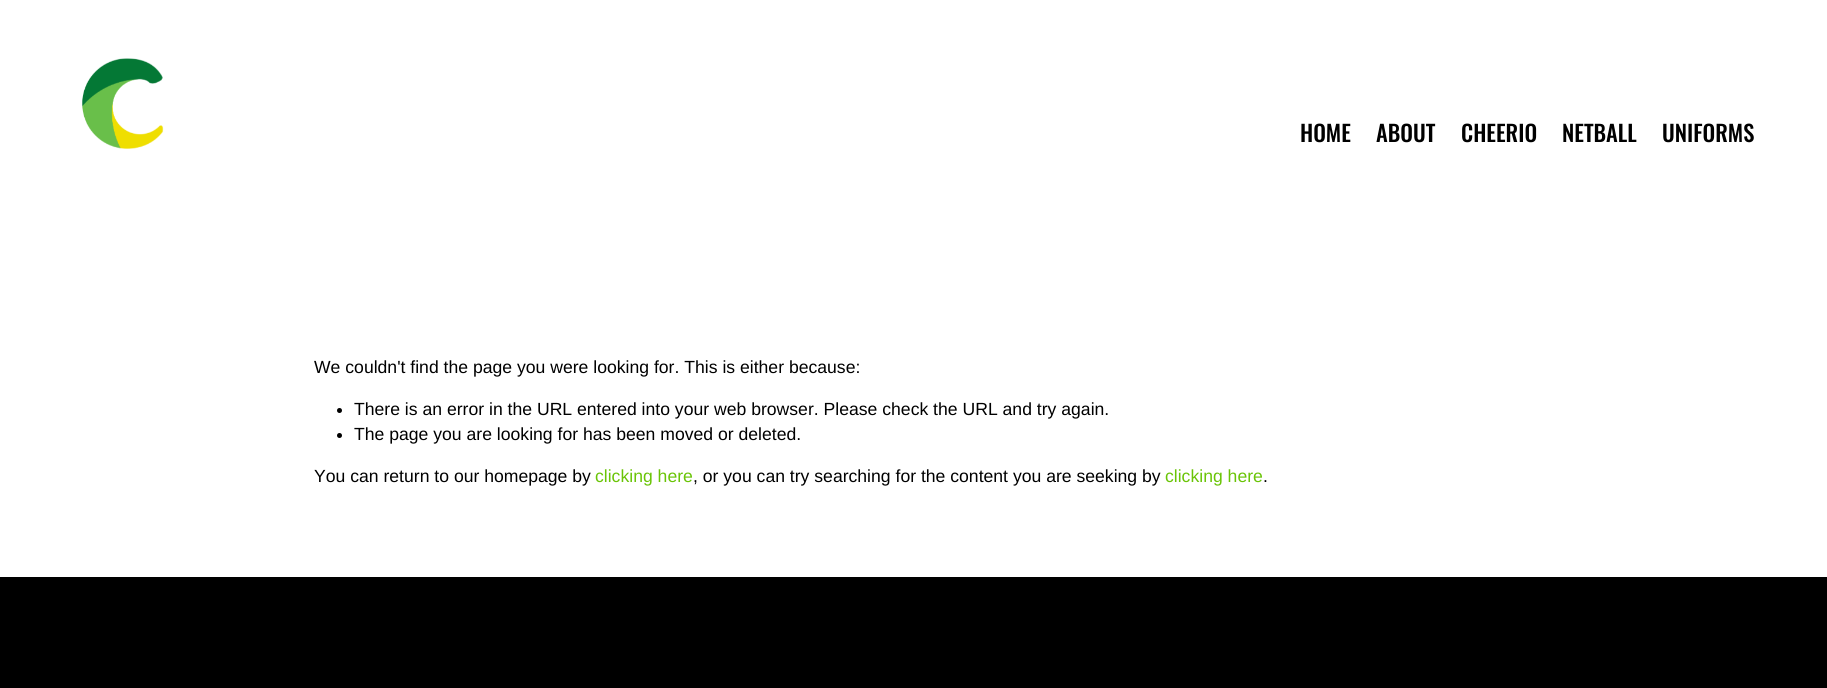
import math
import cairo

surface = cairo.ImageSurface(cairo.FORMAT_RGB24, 1827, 688)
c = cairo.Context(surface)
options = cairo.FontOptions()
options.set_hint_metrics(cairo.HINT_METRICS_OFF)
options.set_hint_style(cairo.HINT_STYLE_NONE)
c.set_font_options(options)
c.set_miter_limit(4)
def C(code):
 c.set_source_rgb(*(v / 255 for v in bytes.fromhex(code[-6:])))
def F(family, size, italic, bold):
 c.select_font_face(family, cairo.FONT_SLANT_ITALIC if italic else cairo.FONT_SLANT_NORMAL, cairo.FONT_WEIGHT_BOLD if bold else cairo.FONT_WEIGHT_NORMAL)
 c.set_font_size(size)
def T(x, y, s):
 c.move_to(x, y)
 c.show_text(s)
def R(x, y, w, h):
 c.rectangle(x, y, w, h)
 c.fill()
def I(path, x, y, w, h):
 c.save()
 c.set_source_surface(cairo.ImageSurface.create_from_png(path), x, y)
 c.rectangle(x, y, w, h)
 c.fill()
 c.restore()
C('ffffff')
c.paint()
I('1.png',82,58,82,91)
F('Oswald Medium',22.5,0,0)
C('000000')
T(1300,142,'HOME')
T(1376,142,'ABOUT')
T(1461,142,'CHEERIO')
T(1562,142,'NETBALL')
T(1662,142,'UNIFORMS')
F('Liberation Sans',17.6,0,0)
T(314,373,'We couldn\'t find the page you were looking for. This is either because:')
c.new_path()
c.arc(339.5,410.5,2.5,0,2 * math.pi)
c.fill()
T(354,415,'There is an error in the URL entered into your web browser. Please check the URL and try again.')
c.new_path()
c.arc(339.5,435.5,2.5,0,2 * math.pi)
c.fill()
T(354,440,'The page you are looking for has been moved or deleted.')
T(314,482,'You can return to our homepage by')
C('6ac407')
T(595,482,'clicking here')
C('000000')
T(693,482,', or you can try searching for the content you are seeking by')
C('6ac407')
T(1165,482,'clicking here')
C('000000')
T(1263,482,'.')
R(0,577,1827,111)
surface.write_to_png('o.png')
